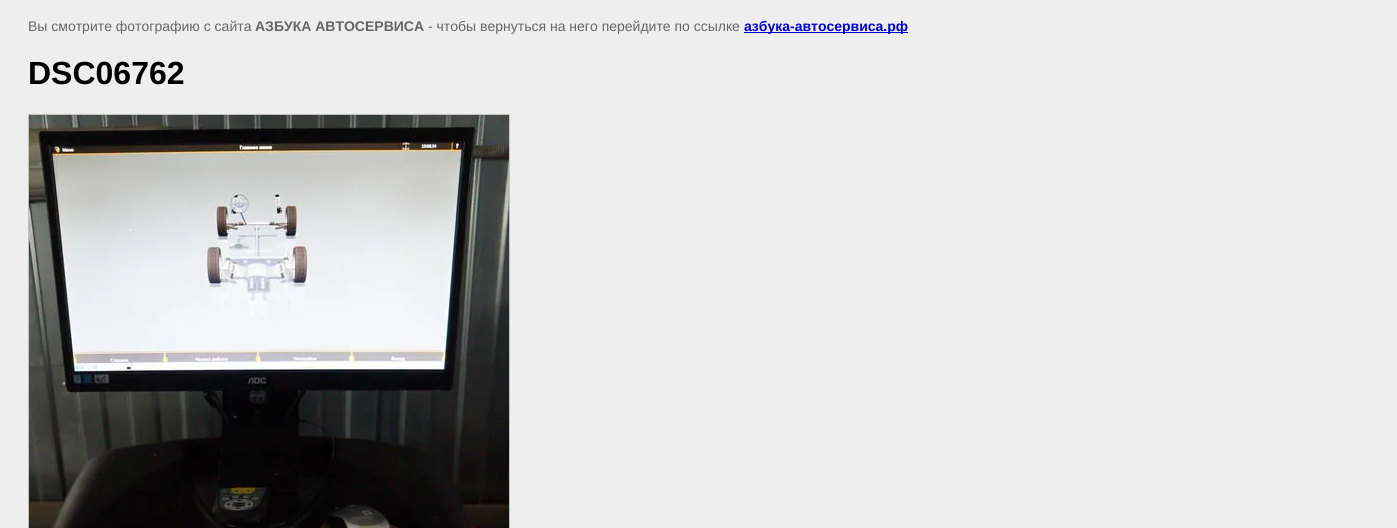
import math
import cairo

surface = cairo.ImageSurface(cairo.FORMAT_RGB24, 1397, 528)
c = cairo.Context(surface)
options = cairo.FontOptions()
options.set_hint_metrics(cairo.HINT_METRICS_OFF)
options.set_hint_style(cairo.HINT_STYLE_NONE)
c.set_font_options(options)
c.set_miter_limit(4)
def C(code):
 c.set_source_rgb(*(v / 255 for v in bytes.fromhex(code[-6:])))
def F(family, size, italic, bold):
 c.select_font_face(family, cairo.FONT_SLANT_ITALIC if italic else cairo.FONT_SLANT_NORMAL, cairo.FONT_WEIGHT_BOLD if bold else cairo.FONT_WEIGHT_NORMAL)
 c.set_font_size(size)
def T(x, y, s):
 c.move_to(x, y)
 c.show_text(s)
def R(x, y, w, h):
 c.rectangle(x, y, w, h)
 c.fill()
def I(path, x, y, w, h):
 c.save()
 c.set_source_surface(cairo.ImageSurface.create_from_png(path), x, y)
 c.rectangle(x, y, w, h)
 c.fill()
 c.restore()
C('eeeeee')
c.paint()
F('Liberation Sans',14,0,0)
C('666666')
T(28,31,'Вы смотрите фотографию с сайта')
F('Liberation Sans',14,0,1)
T(255,31,'АЗБУКА АВТОСЕРВИСА')
F('Liberation Sans',14,0,0)
T(428,31,'- чтобы вернуться на него перейдите по ссылке')
C('0000cc')
R(744,32,164,1)
F('Liberation Sans',14,0,1)
T(744,31,'азбука-автосервиса.рф')
F('Liberation Sans',32,0,1)
C('000000')
T(28,84,'DSC06762')
c.rectangle(28.5,114.5,481,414)
C('c0c0c0')
c.set_line_width(1)
c.stroke()
I('1.png',29,115,480,413)
surface.write_to_png('o.png')
